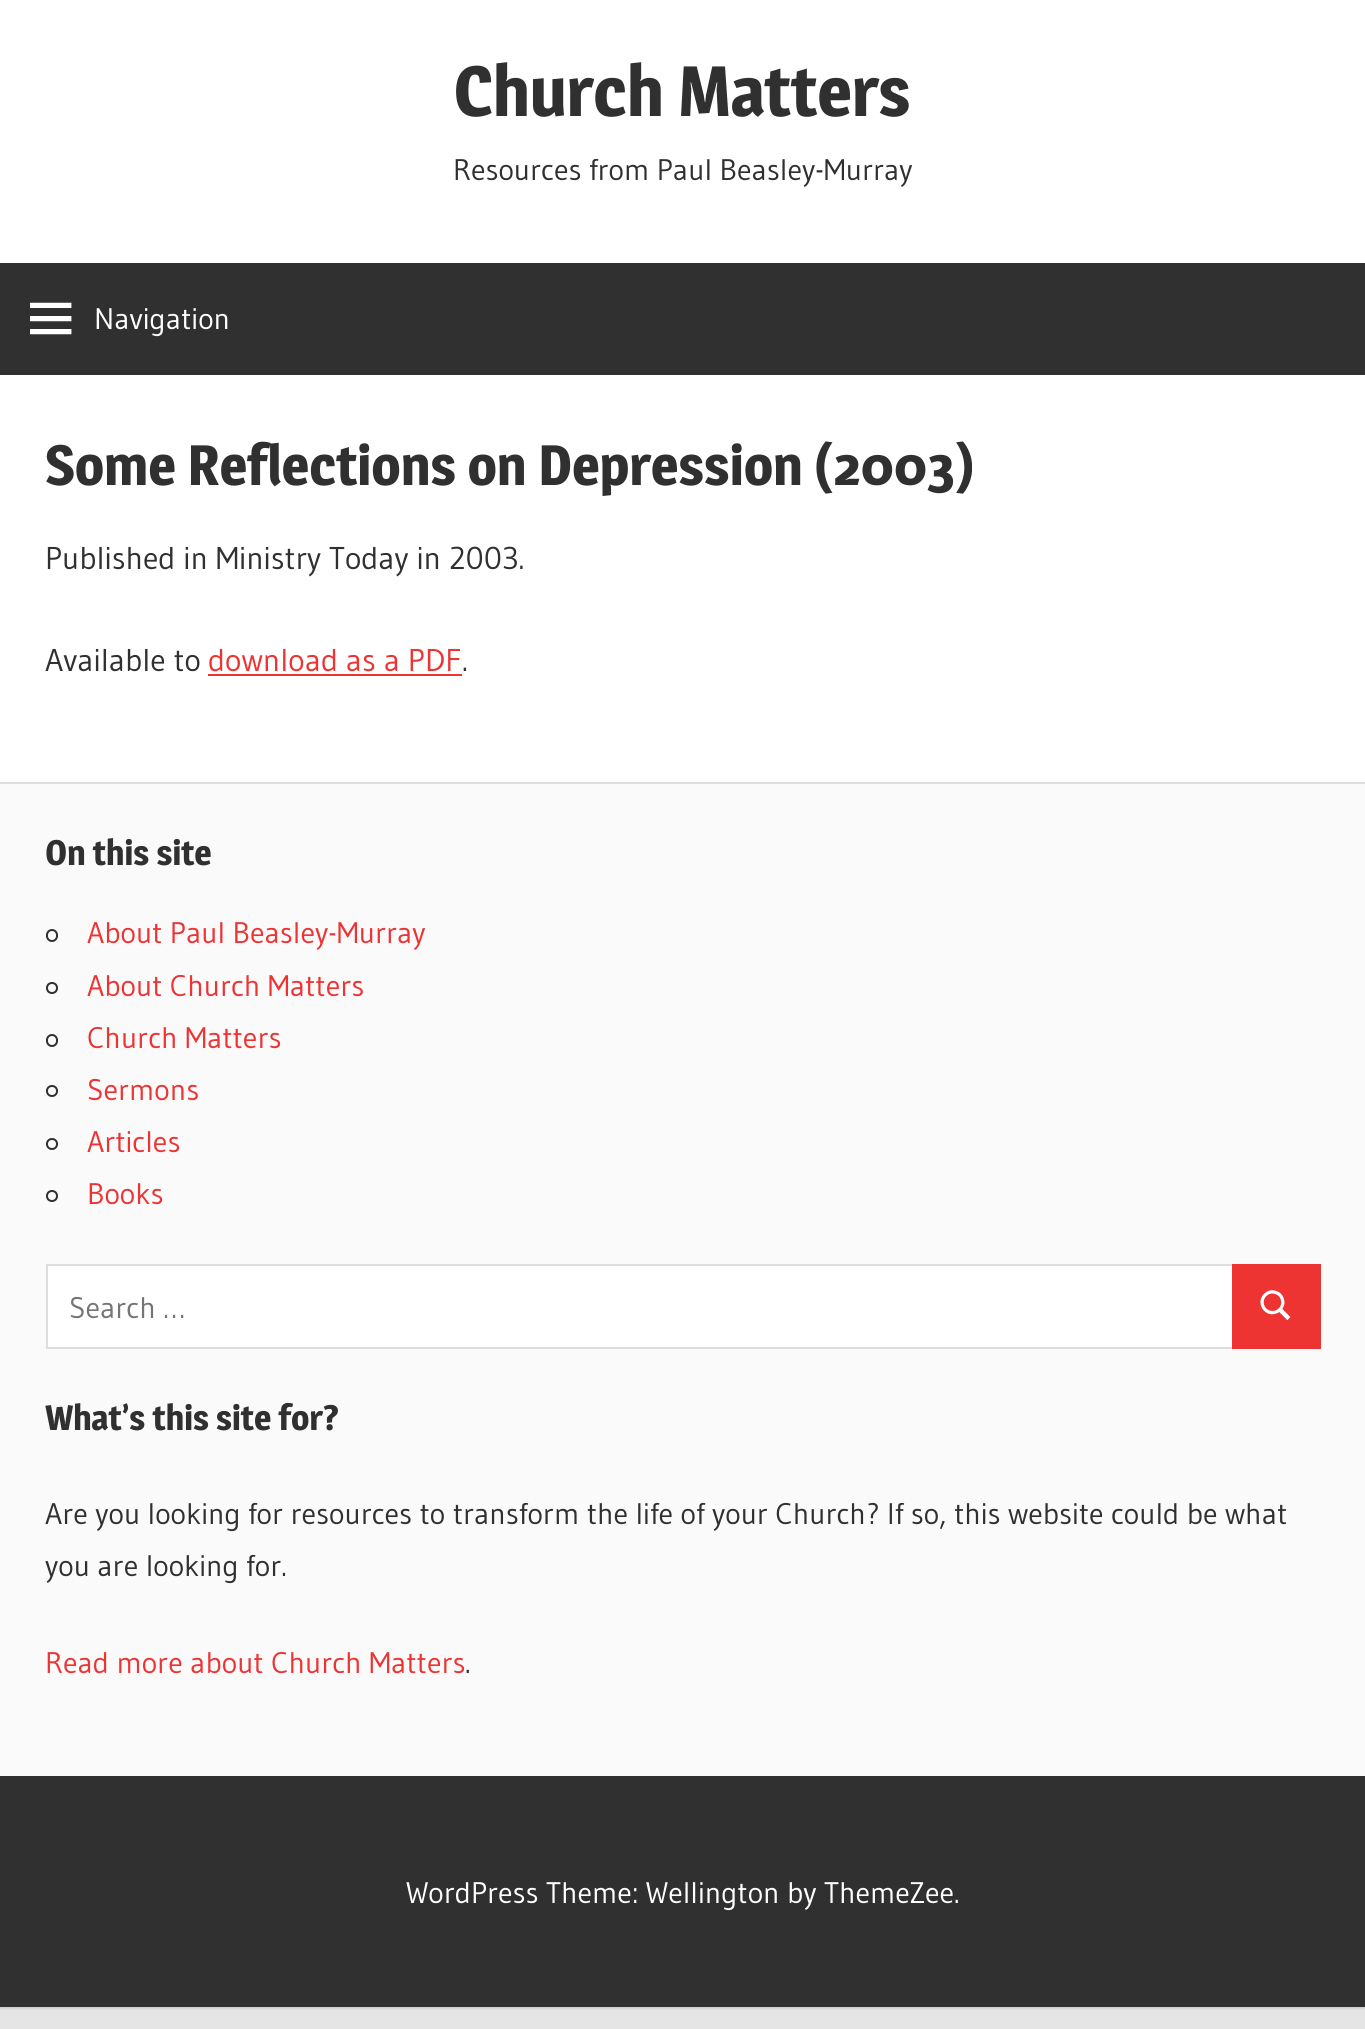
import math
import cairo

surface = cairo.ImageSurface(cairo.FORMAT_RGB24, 1365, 2029)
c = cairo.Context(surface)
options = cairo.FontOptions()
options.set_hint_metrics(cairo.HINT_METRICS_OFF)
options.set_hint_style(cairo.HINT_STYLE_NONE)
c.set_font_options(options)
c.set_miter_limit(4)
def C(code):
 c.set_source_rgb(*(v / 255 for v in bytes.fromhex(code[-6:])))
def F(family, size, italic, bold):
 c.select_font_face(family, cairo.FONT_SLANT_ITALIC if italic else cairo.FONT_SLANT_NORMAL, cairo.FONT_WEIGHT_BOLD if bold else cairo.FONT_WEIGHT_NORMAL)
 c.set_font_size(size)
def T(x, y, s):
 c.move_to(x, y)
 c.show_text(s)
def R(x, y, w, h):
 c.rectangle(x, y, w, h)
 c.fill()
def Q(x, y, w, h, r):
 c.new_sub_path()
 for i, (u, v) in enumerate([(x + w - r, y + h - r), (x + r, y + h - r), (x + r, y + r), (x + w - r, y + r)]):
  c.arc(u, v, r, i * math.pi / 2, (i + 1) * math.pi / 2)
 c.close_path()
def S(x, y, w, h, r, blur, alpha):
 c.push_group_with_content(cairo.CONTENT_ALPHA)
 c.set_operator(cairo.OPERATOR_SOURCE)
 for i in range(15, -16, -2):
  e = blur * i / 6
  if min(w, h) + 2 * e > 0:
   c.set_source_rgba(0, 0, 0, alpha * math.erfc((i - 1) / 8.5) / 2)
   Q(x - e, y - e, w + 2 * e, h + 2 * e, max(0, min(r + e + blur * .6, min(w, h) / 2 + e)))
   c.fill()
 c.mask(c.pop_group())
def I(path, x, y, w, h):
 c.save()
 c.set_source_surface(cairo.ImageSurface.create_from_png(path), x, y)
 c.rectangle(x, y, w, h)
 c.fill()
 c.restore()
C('e5e5e5')
c.paint()
C('aaaaaa')
S(0,0,1365,2007,0,2,1)
C('ffffff')
R(0,0,1365,782)
F('Magra',70,0,1)
C('303030')
T(454,116,'Church Matters')
F('Gudea',29.75,0,0)
T(453,180,'Resources from Paul Beasley-Murray')
R(0,263,1365,112)
I('1.png',30,302,42,33)
C('ffffff')
T(94,329,'Navigation')
F('Magra',56,0,1)
C('303030')
T(45,485,'Some Reflections on Depression (2003)')
F('Gudea',31.5,0,0)
T(45,569,'Published in Ministry Today in 2003.')
T(45,671,'Available to')
C('ee3333')
T(208,671,'download as a PDF')
R(208,674,254,2)
C('303030')
T(462,671,'.')
C('fafafa')
R(0,784,1365,992)
C('dddddd')
R(0,782,1365,2)
F('Magra',35,0,1)
C('303030')
T(45,865,'On this site')
Q(47,930,10,11,5)
c.stroke()
F('Gudea',29.75,0,0)
C('ee3333')
T(87,943,'About Paul Beasley-Murray')
c.new_path()
c.arc(52,988,5,0,2 * math.pi)
C('303030')
c.stroke()
C('ee3333')
T(87,996,'About Church Matters')
Q(47,1035,10,11,5)
C('303030')
c.stroke()
C('ee3333')
T(87,1048,'Church Matters')
c.new_path()
c.arc(52,1091,5,0,2 * math.pi)
C('303030')
c.stroke()
C('ee3333')
T(87,1100,'Sermons')
c.new_path()
c.arc(52,1144,5,0,2 * math.pi)
C('303030')
c.stroke()
C('ee3333')
T(87,1152,'Articles')
c.new_path()
c.arc(52,1196,5,0,2 * math.pi)
C('303030')
c.stroke()
C('ee3333')
T(87,1204,'Books')
C('ffffff')
c.rectangle(47,1265,1186,83)
c.fill_preserve()
C('dddddd')
c.stroke()
C('757575')
T(69,1318,'Search …')
C('ee3333')
R(1232,1264,89,85)
I('2.png',1260,1290,31,31)
F('Magra',35,0,1)
C('303030')
T(45,1430,'What’s this site for?')
F('Gudea',29.75,0,0)
T(45,1524,'Are you looking for resources to transform the life of your Church? If so, this website could be what')
T(45,1576,'you are looking for.')
C('ee3333')
T(45,1673,'Read more about Church Matters')
C('303030')
T(465,1673,'.')
R(0,1776,1365,231)
C('ffffff')
T(406,1903,'WordPress Theme: Wellington by ThemeZee.')
surface.write_to_png('o.png')
